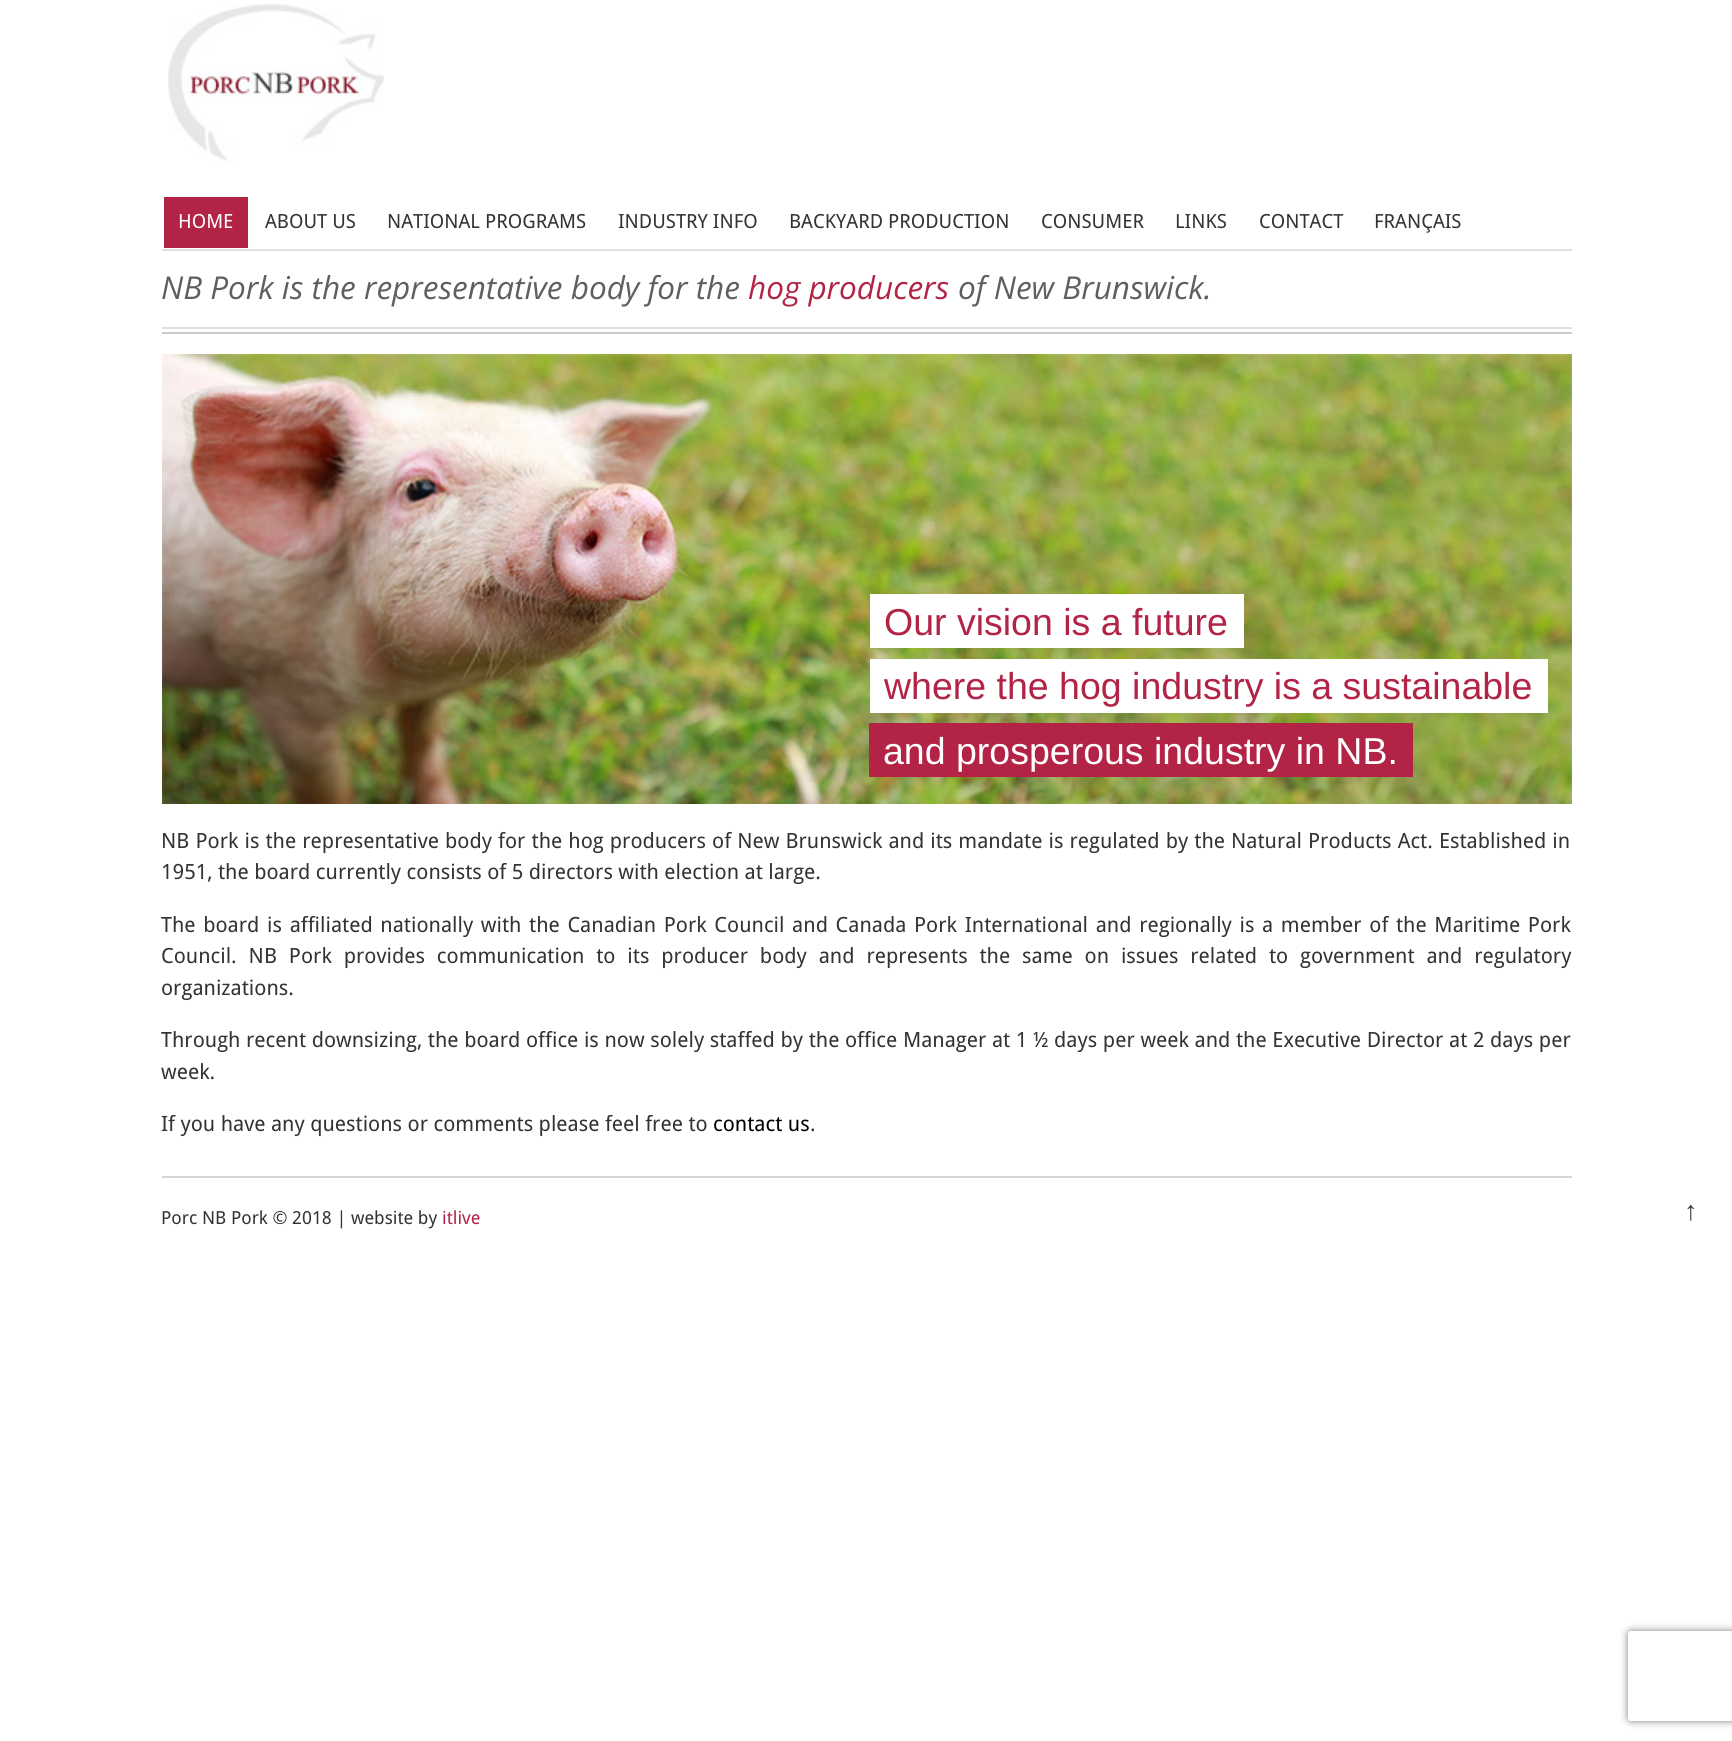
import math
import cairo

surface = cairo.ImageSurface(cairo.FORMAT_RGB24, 1732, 1741)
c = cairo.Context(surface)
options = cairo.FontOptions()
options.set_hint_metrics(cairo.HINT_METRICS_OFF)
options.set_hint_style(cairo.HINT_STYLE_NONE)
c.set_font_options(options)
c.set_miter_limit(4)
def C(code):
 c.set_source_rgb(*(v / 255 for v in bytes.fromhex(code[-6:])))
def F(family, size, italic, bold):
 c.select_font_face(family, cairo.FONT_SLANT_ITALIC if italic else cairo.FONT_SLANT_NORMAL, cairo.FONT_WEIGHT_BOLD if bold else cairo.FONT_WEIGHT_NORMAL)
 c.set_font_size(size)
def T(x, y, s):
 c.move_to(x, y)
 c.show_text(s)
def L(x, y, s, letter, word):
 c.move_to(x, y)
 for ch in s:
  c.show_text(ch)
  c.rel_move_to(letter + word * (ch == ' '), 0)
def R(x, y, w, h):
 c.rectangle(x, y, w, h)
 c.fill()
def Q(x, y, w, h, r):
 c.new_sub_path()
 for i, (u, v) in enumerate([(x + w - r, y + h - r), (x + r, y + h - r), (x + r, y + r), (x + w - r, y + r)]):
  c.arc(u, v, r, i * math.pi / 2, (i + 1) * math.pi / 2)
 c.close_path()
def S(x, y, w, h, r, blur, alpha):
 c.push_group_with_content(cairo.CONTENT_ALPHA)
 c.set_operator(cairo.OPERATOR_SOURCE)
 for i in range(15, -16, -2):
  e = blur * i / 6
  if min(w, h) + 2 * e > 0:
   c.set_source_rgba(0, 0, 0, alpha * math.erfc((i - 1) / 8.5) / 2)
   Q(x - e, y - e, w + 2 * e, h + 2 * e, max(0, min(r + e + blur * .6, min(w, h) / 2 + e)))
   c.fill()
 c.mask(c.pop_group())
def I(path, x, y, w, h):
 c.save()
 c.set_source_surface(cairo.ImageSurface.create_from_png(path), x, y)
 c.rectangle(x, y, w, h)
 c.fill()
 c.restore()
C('ffffff')
c.paint()
I('1.png',168,3,216,158)
C('b22345')
R(164,197,84,51)
F('Droid Sans',19.5,0,0)
C('ffffff')
T(178,228,'HOME')
C('333333')
T(265,228,'ABOUT US')
T(387,228,'NATIONAL PROGRAMS')
T(618,228,'INDUSTRY INFO')
T(789,228,'BACKYARD PRODUCTION')
T(1041,228,'CONSUMER')
T(1175,228,'LINKS')
T(1259,228,'CONTACT')
T(1374,228,'FRANÇAIS')
C('e0e0e0')
R(162,249,1410,2)
F('Open Sans',31.5,1,0)
C('5f5f5f')
T(161,299,'NB Pork is the representative body for the')
C('b22345')
T(748,299,'hog producers')
C('5f5f5f')
T(958,299,'of New Brunswick.')
C('e0e0e0')
R(162,327,1410,2)
C('cccccc')
R(162,332,1410,2)
I('2.png',162,354,1410,450)
C('ffffff')
R(870,594,374,54)
F('Liberation Sans',37.5,0,0)
C('b22345')
T(884,635,'Our vision is a future')
C('ffffff')
R(870,659,678,54)
C('b22345')
T(884,699,'where the hog industry is a sustainable')
R(869,723,544,54)
C('ffffff')
T(883,764,'and prosperous industry in NB.')
F('Droid Sans',21,0,0)
C('333333')
L(161,848,'NB Pork is the representative body for the hog producers of New Brunswick and its mandate is regulated by the Natural Products Act. Established in',0,.6)
T(161,879,'1951, the board currently consists of 5 directors with election at large.')
L(161,932,'The board is affiliated nationally with the Canadian Pork Council and Canada Pork International and regionally is a member of the Maritime Pork',0,2.2)
L(161,963,'Council. NB Pork provides communication to its producer body and represents the same on issues related to government and regulatory',0,6.4)
T(161,995,'organizations.')
L(161,1047,'Through recent downsizing, the board office is now solely staffed by the office Manager at 1 ½ days per week and the Executive Director at 2 days per',0,.15)
T(161,1079,'week.')
T(161,1131,'If you have any questions or comments please feel free to')
C('000000')
T(713,1131,'contact us')
C('333333')
T(810,1131,'.')
C('d6d6d6')
R(162,1176,1410,2)
F('Droid Sans',18,0,0)
C('333333')
T(161,1224,'Porc NB Pork © 2018 | website by')
C('b22345')
T(442,1224,'itlive')
F('Liberation Sans',27,0,0)
C('3b3b3b')
T(1684,1220,'↑')
c.save()
c.set_fill_rule(cairo.FILL_RULE_EVEN_ODD)
c.new_path()
c.move_to(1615,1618)
c.line_to(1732,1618)
c.line_to(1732,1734)
c.line_to(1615,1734)
c.close_path()
c.move_to(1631,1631)
c.line_to(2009,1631)
c.curve_to(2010.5,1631,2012,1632.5,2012,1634)
c.line_to(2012,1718)
c.curve_to(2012,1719.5,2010.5,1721,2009,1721)
c.line_to(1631,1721)
c.curve_to(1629.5,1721,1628,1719.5,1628,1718)
c.line_to(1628,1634)
c.curve_to(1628,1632.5,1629.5,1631,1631,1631)
c.close_path()
c.clip()
C('808080')
S(1628,1631,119,90,3,4,1)
c.restore()
surface.write_to_png('o.png')
